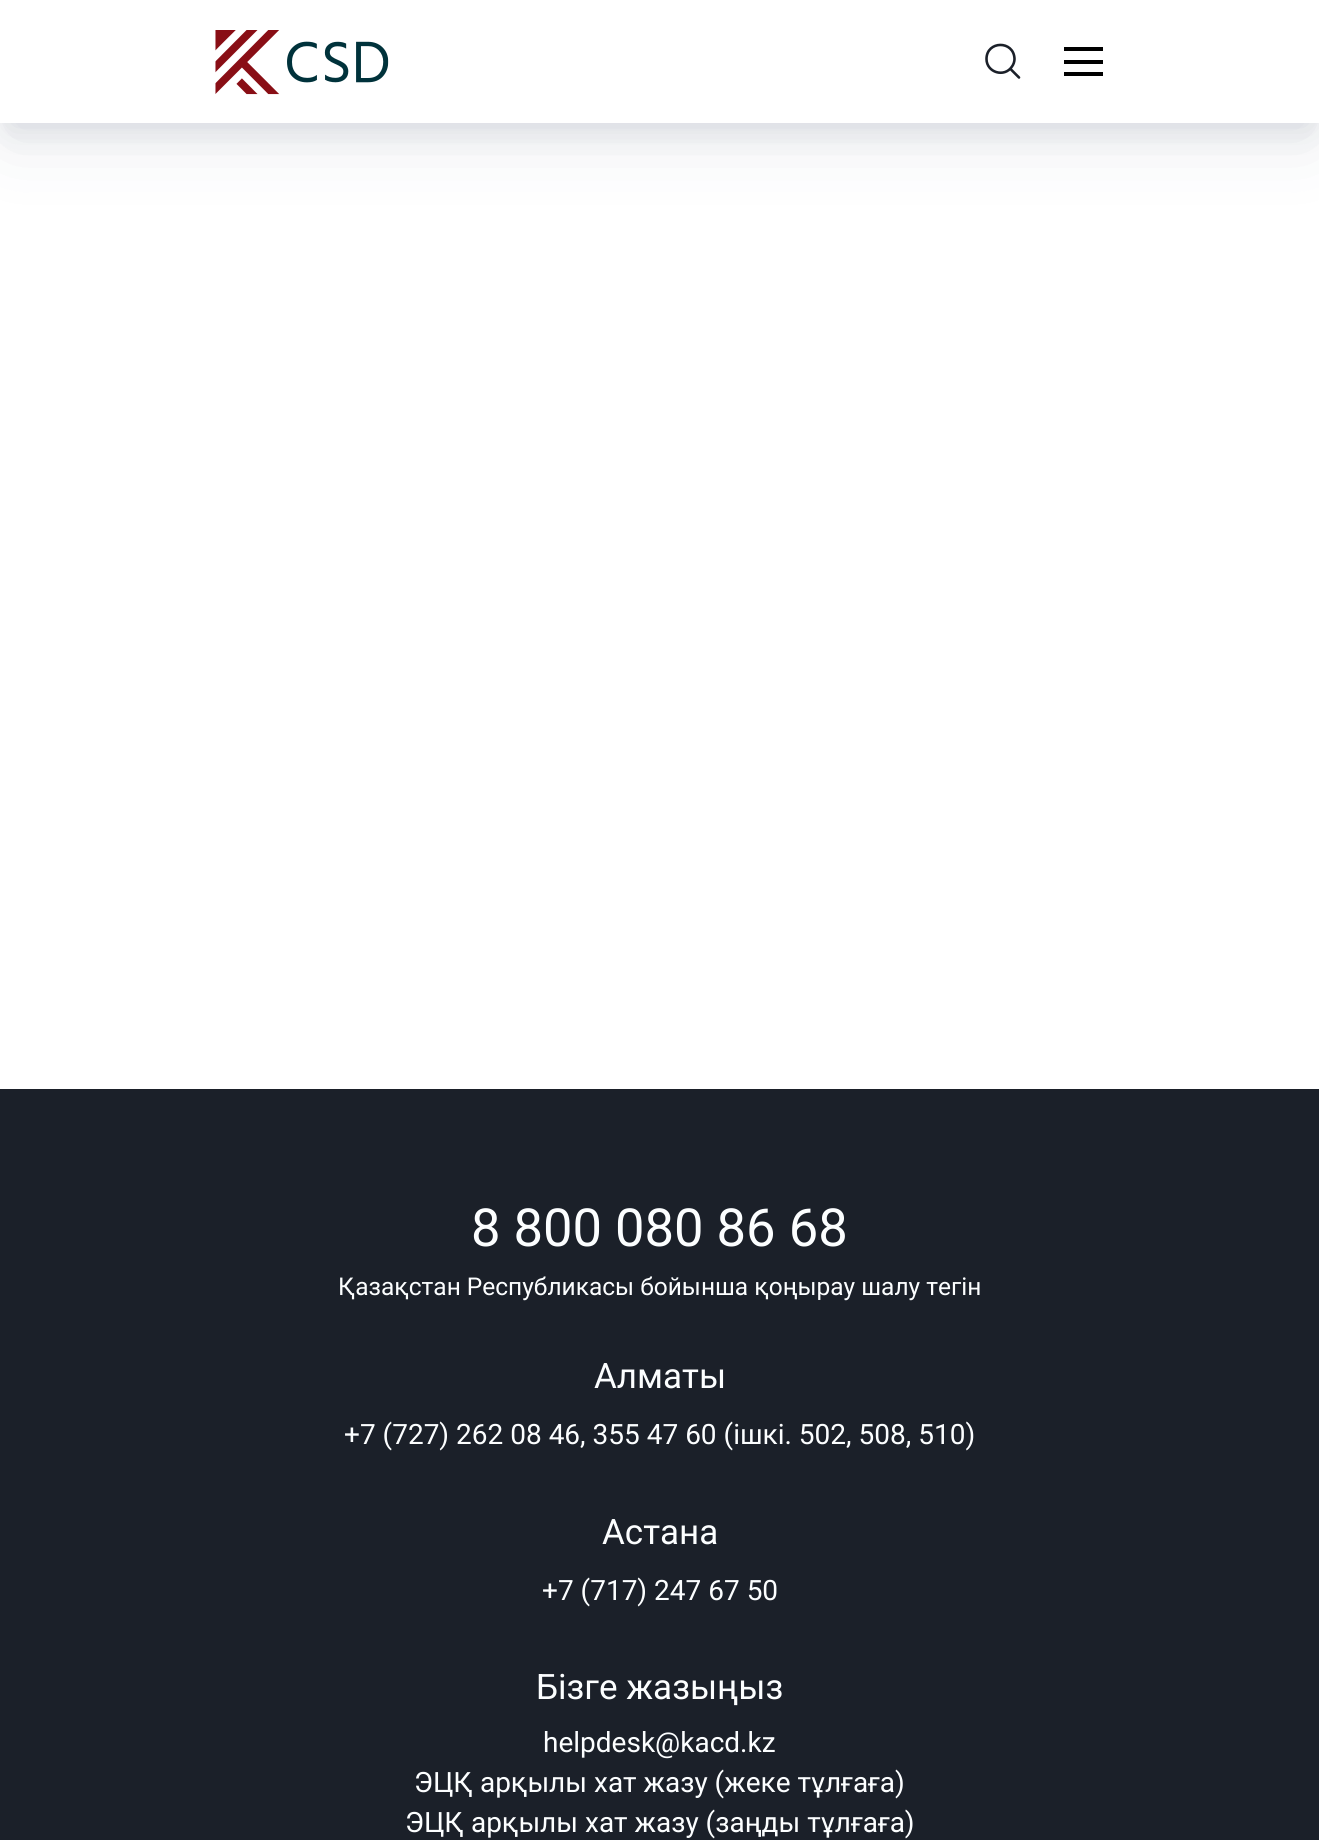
import math
import cairo

surface = cairo.ImageSurface(cairo.FORMAT_RGB24, 1319, 1840)
c = cairo.Context(surface)
options = cairo.FontOptions()
options.set_hint_metrics(cairo.HINT_METRICS_OFF)
options.set_hint_style(cairo.HINT_STYLE_NONE)
c.set_font_options(options)
c.set_miter_limit(4)
def C(code):
 c.set_source_rgb(*(v / 255 for v in bytes.fromhex(code[-6:])))
def F(family, size, italic, bold):
 c.select_font_face(family, cairo.FONT_SLANT_ITALIC if italic else cairo.FONT_SLANT_NORMAL, cairo.FONT_WEIGHT_BOLD if bold else cairo.FONT_WEIGHT_NORMAL)
 c.set_font_size(size)
def T(x, y, s):
 c.move_to(x, y)
 c.show_text(s)
def R(x, y, w, h):
 c.rectangle(x, y, w, h)
 c.fill()
def Q(x, y, w, h, r):
 c.new_sub_path()
 for i, (u, v) in enumerate([(x + w - r, y + h - r), (x + r, y + h - r), (x + r, y + r), (x + w - r, y + r)]):
  c.arc(u, v, r, i * math.pi / 2, (i + 1) * math.pi / 2)
 c.close_path()
def S(x, y, w, h, r, blur, alpha):
 c.push_group_with_content(cairo.CONTENT_ALPHA)
 c.set_operator(cairo.OPERATOR_SOURCE)
 for i in range(15, -16, -2):
  e = blur * i / 6
  if min(w, h) + 2 * e > 0:
   c.set_source_rgba(0, 0, 0, alpha * math.erfc((i - 1) / 8.5) / 2)
   Q(x - e, y - e, w + 2 * e, h + 2 * e, max(0, min(r + e + blur * .6, min(w, h) / 2 + e)))
   c.fill()
 c.mask(c.pop_group())
def I(path, x, y, w, h):
 c.save()
 c.set_source_surface(cairo.ImageSurface.create_from_png(path), x, y)
 c.rectangle(x, y, w, h)
 c.fill()
 c.restore()
C('ffffff')
c.paint()
C('18274b')
S(11,25,1298,101,0,16,.12)
S(7,28,1306,109,0,37,.12)
C('ffffff')
R(0,0,1319,123)
I('1.png',215,30,174,65)
c.new_path()
c.move_to(1011,69.5)
c.line_to(1019,77.5)
c.move_to(986.5,59)
c.curve_to(986.5,72.5,1004.5,78,1012,66.5)
c.curve_to(1013.5,64.5,1014.5,61.5,1014.5,59)
c.curve_to(1014,40,986.5,40.5,986.5,59)
c.close_path()
C('1b2029')
c.set_line_width(2.6)
c.set_line_cap(cairo.LINE_CAP_ROUND)
c.set_line_join(cairo.LINE_JOIN_ROUND)
c.stroke()
C('000000')
R(1064,60,39,4)
R(1064,47,39,4)
R(1064,72,39,4)
C('1b2029')
R(0,1089,1319,751)
F('Roboto',52.5,0,0)
C('fcfeff')
T(471,1246,'8 800 080 86 68')
F('Roboto',24.5,0,0)
T(338,1295,'Қазақстан Республикасы бойынша қоңырау шалу тегін')
F('Roboto',35,0,0)
T(594,1388,'Алматы')
F('Roboto',28,0,0)
T(344,1444,'+7 (727) 262 08 46, 355 47 60 (ішкі. 502, 508, 510)')
F('Roboto',35,0,0)
T(602,1544,'Астана')
F('Roboto',28,0,0)
T(542,1600,'+7 (717) 247 67 50')
F('Roboto',35,0,0)
T(536,1699,'Бізге жазыңыз')
F('Roboto',28,0,0)
T(543,1752,'helpdesk@kacd.kz')
T(414,1792,'ЭЦҚ арқылы хат жазу (жеке тұлғаға)')
T(405,1832,'ЭЦҚ арқылы хат жазу (заңды тұлғаға)')
surface.write_to_png('o.png')
